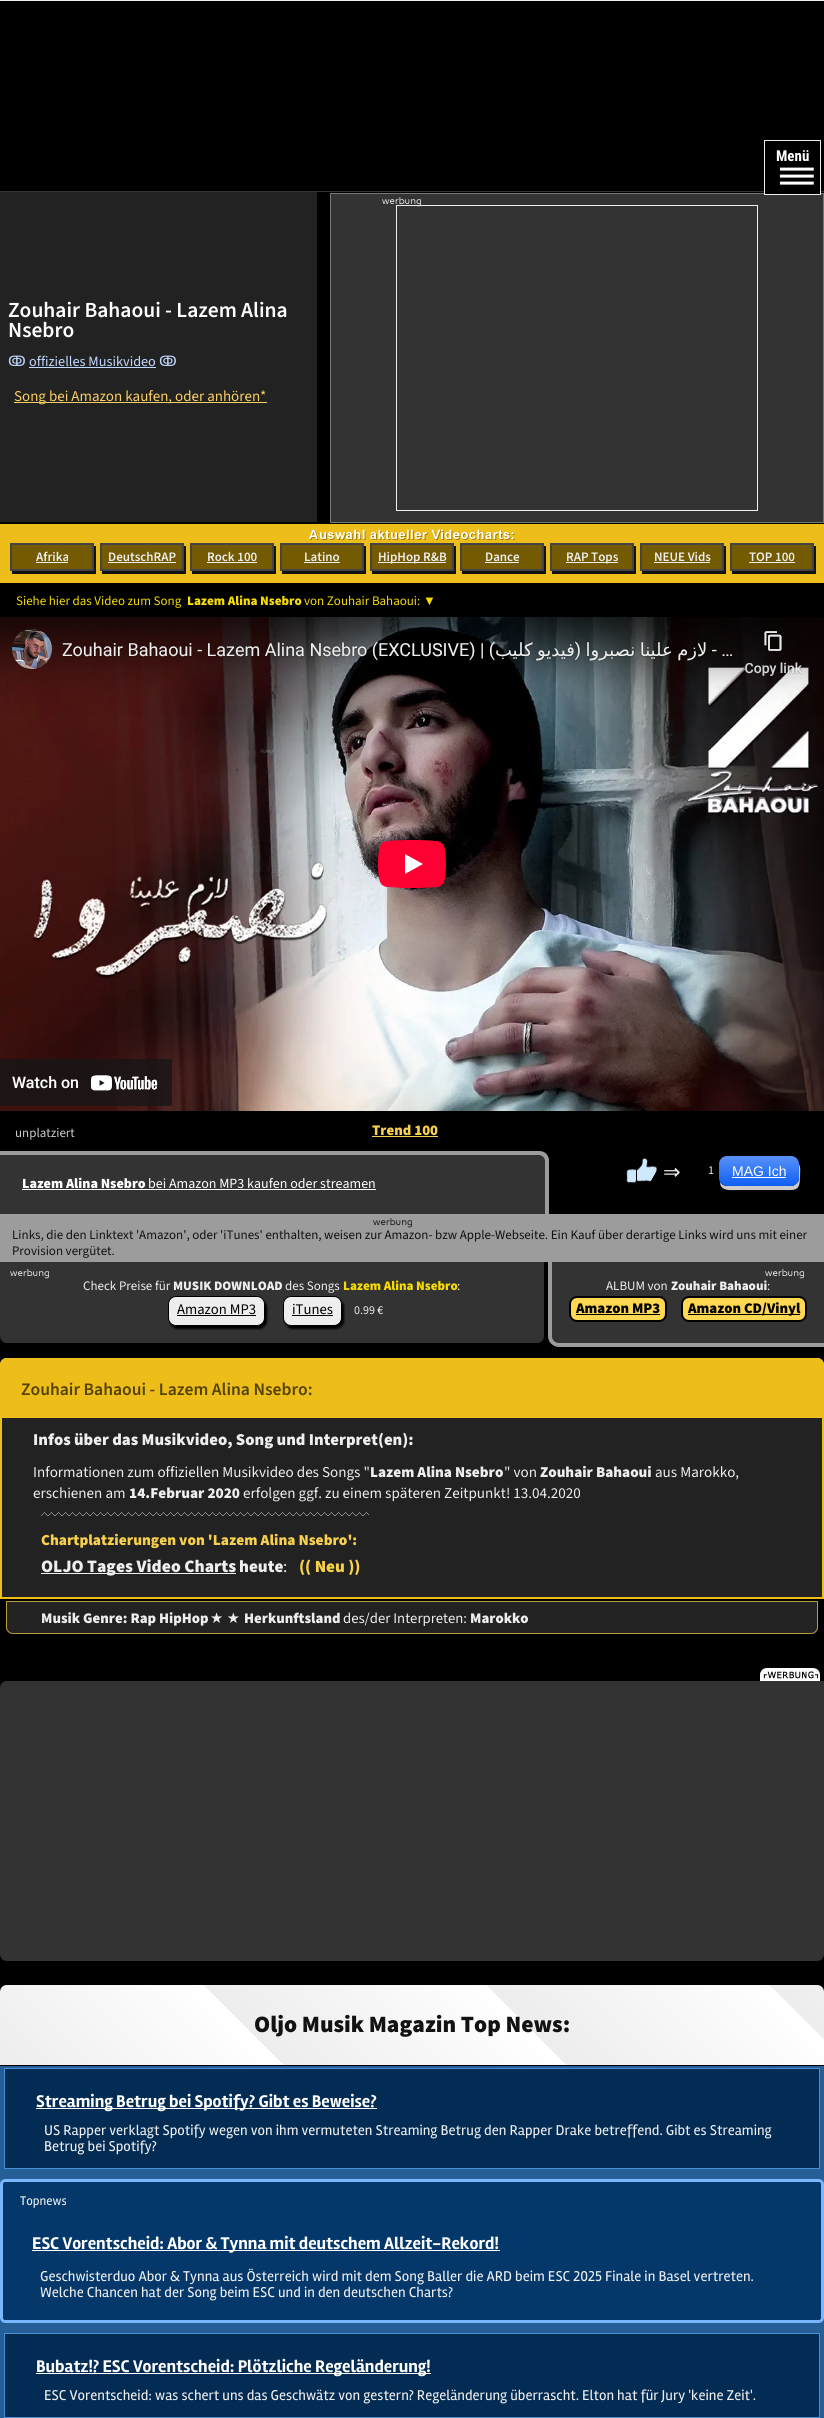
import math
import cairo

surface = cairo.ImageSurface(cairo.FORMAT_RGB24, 824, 2418)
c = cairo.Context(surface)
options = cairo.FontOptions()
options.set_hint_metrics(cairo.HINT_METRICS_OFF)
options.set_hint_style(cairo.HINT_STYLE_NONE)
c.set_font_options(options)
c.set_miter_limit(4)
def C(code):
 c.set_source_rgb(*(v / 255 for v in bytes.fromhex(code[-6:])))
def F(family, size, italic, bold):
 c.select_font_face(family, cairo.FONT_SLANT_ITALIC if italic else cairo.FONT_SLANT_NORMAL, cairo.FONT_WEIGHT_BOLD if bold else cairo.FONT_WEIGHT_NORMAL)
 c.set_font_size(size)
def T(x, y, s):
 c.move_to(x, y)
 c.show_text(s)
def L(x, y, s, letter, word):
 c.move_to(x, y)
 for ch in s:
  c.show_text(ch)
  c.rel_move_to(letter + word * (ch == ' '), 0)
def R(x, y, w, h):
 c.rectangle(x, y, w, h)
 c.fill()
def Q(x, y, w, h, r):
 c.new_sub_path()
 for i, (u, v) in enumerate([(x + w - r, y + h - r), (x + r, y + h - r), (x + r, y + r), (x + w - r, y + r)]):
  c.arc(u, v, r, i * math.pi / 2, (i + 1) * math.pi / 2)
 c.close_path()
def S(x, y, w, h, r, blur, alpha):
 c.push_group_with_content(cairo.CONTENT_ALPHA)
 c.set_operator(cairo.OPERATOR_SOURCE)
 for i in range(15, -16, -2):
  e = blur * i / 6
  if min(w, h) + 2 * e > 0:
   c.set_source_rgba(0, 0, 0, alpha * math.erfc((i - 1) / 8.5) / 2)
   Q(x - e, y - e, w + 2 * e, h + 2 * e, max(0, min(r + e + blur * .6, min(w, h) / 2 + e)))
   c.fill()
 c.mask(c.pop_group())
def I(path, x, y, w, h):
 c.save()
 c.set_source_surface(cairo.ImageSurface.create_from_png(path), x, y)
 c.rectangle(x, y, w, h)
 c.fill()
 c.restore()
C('000000')
c.paint()
C('eeeeee')
R(0,0,824,1)
C('333333')
R(0,191,824,1)
R(331,194,492,328)
I('2.png',382,197,39,10)
c.rectangle(396.5,205.5,361,305)
C('efefef')
c.set_line_width(1)
c.stroke()
c.rectangle(330.5,193.5,493,329)
C('777777')
c.stroke()
C('000000')
R(765,191,55,3)
I('1.png',779,167,35,18)
c.rectangle(764.5,140.5,56,54)
C('eeeeee')
c.stroke()
F('Roboto Condensed',15,0,1)
C('ffffff')
T(776,161,'Menü')
C('222222')
R(0,192,317,330)
F('Source Sans 3 SemiBold',21.5,0,0)
C('ffffff')
T(8,317,'Zouhair Bahaoui - Lazem Alina')
T(8,337,'Nsebro')
F('DejaVu Sans',14.25,0,0)
C('c2d9ff')
T(8,366,'ↂ')
F('Source Sans 3',14.25,0,0)
T(29,366,'offizielles Musikvideo')
R(29,367,127,1)
F('DejaVu Sans',14.25,0,0)
T(159,366,'ↂ')
C('fbd065')
R(14,402,253,1)
F('Source Sans 3',15,0,0)
T(14,401,'Song bei Amazon kaufen, oder anhören*')
C('edbd1a')
R(0,524,824,59)
I('3.png',309,529,206,11)
C('111111')
c.new_path()
c.move_to(12,571)
c.line_to(12,574)
c.line_to(96,574)
c.line_to(96,546)
c.line_to(94,546)
c.line_to(94,571)
c.close_path()
c.fill()
C('745a01')
c.rectangle(11,544,82,26)
c.fill_preserve()
C('444444')
c.set_line_width(2)
c.stroke()
F('Source Sans 3 SemiBold',13,0,0)
C('eeeeee')
T(36,561,'Afrika')
R(36,562,32,1)
C('111111')
c.new_path()
c.move_to(102,571)
c.line_to(102,574)
c.line_to(186,574)
c.line_to(186,546)
c.line_to(184,546)
c.line_to(184,571)
c.close_path()
c.fill()
C('745a01')
c.rectangle(101,544,82,26)
c.fill_preserve()
C('444444')
c.stroke()
C('eeeeee')
T(108,561,'DeutschRAP')
R(108,562,68,1)
C('111111')
c.new_path()
c.move_to(192,571)
c.line_to(192,574)
c.line_to(276,574)
c.line_to(276,546)
c.line_to(274,546)
c.line_to(274,571)
c.close_path()
c.fill()
C('745a01')
c.rectangle(191,544,82,26)
c.fill_preserve()
C('444444')
c.stroke()
C('eeeeee')
T(207,561,'Rock 100')
R(207,562,50,1)
C('111111')
c.new_path()
c.move_to(282,571)
c.line_to(282,574)
c.line_to(366,574)
c.line_to(366,546)
c.line_to(364,546)
c.line_to(364,571)
c.close_path()
c.fill()
C('745a01')
c.rectangle(281,544,82,26)
c.fill_preserve()
C('444444')
c.stroke()
C('eeeeee')
T(304,561,'Latino')
R(304,562,36,1)
C('111111')
c.new_path()
c.move_to(372,571)
c.line_to(372,574)
c.line_to(456,574)
c.line_to(456,546)
c.line_to(454,546)
c.line_to(454,571)
c.close_path()
c.fill()
C('745a01')
c.rectangle(371,544,82,26)
c.fill_preserve()
C('444444')
c.stroke()
C('eeeeee')
R(378,562,68,1)
T(378,561,'HipHop R&B')
C('111111')
c.new_path()
c.move_to(462,571)
c.line_to(462,574)
c.line_to(546,574)
c.line_to(546,546)
c.line_to(544,546)
c.line_to(544,571)
c.close_path()
c.fill()
C('745a01')
c.rectangle(461,544,82,26)
c.fill_preserve()
C('444444')
c.stroke()
C('eeeeee')
T(485,561,'Dance')
R(485,562,34,1)
C('111111')
c.new_path()
c.move_to(552,571)
c.line_to(552,574)
c.line_to(636,574)
c.line_to(636,546)
c.line_to(634,546)
c.line_to(634,571)
c.close_path()
c.fill()
C('745a01')
c.rectangle(551,544,82,26)
c.fill_preserve()
C('444444')
c.stroke()
C('eeeeee')
R(566,562,52,1)
T(566,561,'RAP Tops')
C('111111')
c.new_path()
c.move_to(642,571)
c.line_to(642,574)
c.line_to(726,574)
c.line_to(726,546)
c.line_to(724,546)
c.line_to(724,571)
c.close_path()
c.fill()
C('745a01')
c.rectangle(641,544,82,26)
c.fill_preserve()
C('444444')
c.stroke()
C('eeeeee')
T(654,561,'NEUE Vids')
R(654,562,56,1)
C('111111')
c.new_path()
c.move_to(732,571)
c.line_to(732,574)
c.line_to(816,574)
c.line_to(816,546)
c.line_to(814,546)
c.line_to(814,571)
c.close_path()
c.fill()
C('745a01')
c.rectangle(731,544,82,26)
c.fill_preserve()
C('444444')
c.stroke()
C('eeeeee')
T(749,561,'TOP 100')
R(749,562,46,1)
F('Source Sans 3',13,0,0)
C('f5db03')
T(16,605,'Siehe hier das Video zum Song')
F('Source Sans 3 Black',13,0,0)
T(187,605,'Lazem Alina Nsebro')
F('Source Sans 3',13,0,0)
T(304,605,'von Zouhair Bahaoui:')
F('Liberation Sans',13,0,0)
T(423,605,'▼')
I('4.png',0,617,824,494)
F('Source Sans 3',13,0,0)
C('cccccc')
T(15,1137,'unplatziert')
F('Source Sans 3 Black',14.7,0,0)
C('f8d14c')
T(372,1135,'Trend 100')
R(372,1136,66,1)
I('5.png',626,1158,32,26)
F('DejaVu Sans',21,0,0)
C('eeeeee')
T(663,1179,'⇒')
F('Source Sans 3',12,0,0)
T(708,1174,'1')
C('cccccc')
c.new_path()
c.move_to(720,1182)
c.curve_to(720,1192,732,1190,739,1190)
c.line_to(781,1190)
c.curve_to(795,1190,800,1192,800,1177)
c.curve_to(800,1173,801,1168,799,1164)
c.line_to(799,1178)
c.curve_to(799,1182,795,1186,791,1186)
c.line_to(727,1186)
c.curve_to(724,1186,721,1184,720,1182)
c.close_path()
c.fill()
gradient = cairo.LinearGradient(759,1186,759,1156)
gradient.add_color_stop_rgba(0,0.055,0.373,0.953,1)
gradient.add_color_stop_rgba(1,0.349,0.569,0.973,1)
c.set_source(gradient)
Q(719,1156,80,30,8)
c.fill()
F('Liberation Sans',14,0,0)
C('ffffff')
T(732,1176,'MAG Ich')
R(732,1177,54,1)
C('333333')
c.new_path()
c.move_to(0,1151)
c.line_to(539,1151)
c.curve_to(544.5,1151,549,1155.5,549,1161)
c.line_to(549,1214)
c.line_to(0,1214)
c.close_path()
c.fill()
C('9c9c9c')
c.set_fill_rule(cairo.FILL_RULE_EVEN_ODD)
c.new_path()
c.move_to(0,1151)
c.line_to(539,1151)
c.curve_to(545,1151,549,1155,549,1161)
c.line_to(549,1214)
c.line_to(0,1214)
c.close_path()
c.move_to(0,1155)
c.line_to(539,1155)
c.curve_to(542,1155,545,1158,545,1161)
c.line_to(545,1214)
c.line_to(0,1214)
c.close_path()
c.fill()
F('Source Sans 3 Black',14,0,0)
C('ffffff')
T(22,1188,'Lazem Alina Nsebro')
R(22,1189,354,1)
F('Source Sans 3',14,0,0)
T(148,1188,'bei Amazon MP3 kaufen oder streamen')
C('9c9c9c')
R(0,1214,824,48)
I('6.png',373,1218,39,10)
F('Source Sans 3',13,0,0)
C('121212')
T(12,1239,'Links, die den Linktext \'Amazon\', oder \'iTunes\' enthalten, weisen zur Amazon- bzw Apple-Webseite. Ein Kauf über derartige Links wird uns mit einer')
T(12,1255,'Provision vergütet.')
C('333333')
c.new_path()
c.move_to(0,1262)
c.line_to(544,1262)
c.line_to(544,1336)
c.curve_to(544,1340,541,1343,537,1343)
c.line_to(7,1343)
c.curve_to(3,1343,0,1340,0,1336)
c.close_path()
c.fill()
I('2.png',10,1269,39,10)
C('eeeeee')
T(83,1290,'Check Preise für')
F('Source Sans 3 Black',13,0,0)
T(173,1290,'MUSIK DOWNLOAD')
F('Source Sans 3',13,0,0)
T(285,1290,'des Songs')
F('Source Sans 3 Black',13,0,0)
C('f5db03')
T(343,1290,'Lazem Alina Nsebro')
F('Source Sans 3',13,0,0)
C('eeeeee')
T(457,1290,':')
C('000000')
S(170,1299,97,30,8,1,1)
C('eeeeee')
Q(168.5,1296.5,96,29,7.5)
c.fill_preserve()
C('000000')
c.set_line_width(1)
c.stroke()
F('Source Sans 3',14.7,0,0)
T(177,1314,'Amazon MP3')
R(177,1315,79,1)
C('000000')
S(285,1299,59,30,8,1,1)
C('eeeeee')
Q(283.5,1296.5,58,29,7.5)
c.fill_preserve()
C('000000')
c.stroke()
T(292,1314,'iTunes')
R(292,1315,41,1)
F('Source Sans 3',12,0,0)
C('eeeeee')
T(354,1314,'0.99 €')
C('333333')
c.new_path()
c.move_to(552,1262)
c.line_to(824,1262)
c.line_to(824,1343)
c.line_to(559,1343)
c.curve_to(555,1343,552,1340,552,1336)
c.close_path()
c.fill()
I('2.png',765,1269,39,10)
C('ffd750')
Q(570,1297,96,24,7)
c.fill_preserve()
C('000000')
c.set_line_width(2)
c.stroke()
R(576,1314,84,1)
C('ffd750')
Q(682,1297,124,24,7)
c.fill_preserve()
C('000000')
c.stroke()
R(688,1314,112,1)
c.new_path()
c.move_to(550,1260)
c.line_to(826,1260)
c.line_to(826,1345)
c.line_to(559,1345)
c.curve_to(554,1345,550,1341,550,1336)
c.close_path()
C('9c9c9c')
c.set_line_width(4)
c.stroke()
F('Source Sans 3',13,0,0)
C('eeeeee')
T(606,1290,'ALBUM von')
F('Source Sans 3 Black',13,0,0)
T(671,1290,'Zouhair Bahaoui')
F('Source Sans 3',13,0,0)
T(767,1290,':')
F('Source Sans 3 Black',14.7,0,0)
C('000000')
T(576,1313,'Amazon MP3')
T(688,1313,'Amazon CD/Vinyl')
C('222222')
c.new_path()
c.move_to(7,1358)
c.line_to(817,1358)
c.curve_to(821,1358,824,1361,824,1365)
c.line_to(824,1599)
c.line_to(0,1599)
c.line_to(0,1365)
c.curve_to(0,1361,3,1358,7,1358)
c.close_path()
c.fill()
C('edbd1a')
c.new_path()
c.move_to(7,1358)
c.line_to(817,1358)
c.curve_to(821,1358,824,1361,824,1365)
c.line_to(824,1418)
c.line_to(0,1418)
c.line_to(0,1365)
c.curve_to(0,1361,3,1358,7,1358)
c.close_path()
c.fill()
C('efefef')
R(41,1573,195,1)
c.new_path()
c.move_to(7,1359)
c.line_to(817,1359)
c.curve_to(820.5,1359,823,1361.5,823,1365)
c.line_to(823,1598)
c.line_to(1,1598)
c.line_to(1,1365)
c.curve_to(1,1361.5,3.5,1359,7,1359)
c.close_path()
C('edbd1a')
c.set_line_width(2)
c.stroke()
F('Source Sans 3 SemiBold',17.6,0,0)
C('544203')
T(21,1395,'Zouhair Bahaoui - Lazem Alina Nsebro:')
F('Source Sans 3 Black',16.6,0,0)
C('eeeeee')
T(33,1445,'Infos über das Musikvideo, Song und Interpret(en):')
F('Source Sans 3',15.1,0,0)
T(33,1477,'Informationen zum offiziellen Musikvideo des Songs "')
F('Source Sans 3 Black',15.1,0,0)
T(370,1477,'Lazem Alina Nsebro')
F('Source Sans 3',15.1,0,0)
T(504,1477,'" von')
F('Source Sans 3 Black',15.1,0,0)
T(540,1477,'Zouhair Bahaoui')
F('Source Sans 3',15.1,0,0)
T(655,1477,'aus Marokko,')
T(33,1498,'erschienen am')
F('Source Sans 3 Black',15.1,0,0)
T(129,1498,'14.Februar 2020')
F('Source Sans 3',15.1,0,0)
T(243,1498,'erfolgen ggf. zu einem späteren Zeitpunkt! 13.04.2020')
I('7.png',41,1512,328,4)
F('Source Sans 3 Black',15.25,0,0)
C('f8d14c')
T(41,1545,'Chartplatzierungen von \'Lazem Alina Nsebro\':')
F('Source Sans 3 Black',17.5,0,0)
C('eeeeee')
T(41,1572,'OLJO Tages Video Charts')
F('Source Sans 3 Black',17,0,0)
T(239,1572,'heute')
F('Source Sans 3',17,0,0)
T(283,1572,':')
F('Source Sans 3 Black',17,0,0)
C('f8d14c')
T(299,1572,'(( Neu ))')
C('222222')
c.new_path()
c.move_to(6,1601)
c.line_to(818,1601)
c.line_to(818,1627)
c.curve_to(818,1631,815,1634,811,1634)
c.line_to(13,1634)
c.curve_to(9,1634,6,1631,6,1627)
c.close_path()
c.fill()
c.new_path()
c.move_to(6.5,1601.5)
c.line_to(817.5,1601.5)
c.line_to(817.5,1627)
c.curve_to(817.5,1630.5,814.5,1633.5,811,1633.5)
c.line_to(13,1633.5)
c.curve_to(9.5,1633.5,6.5,1630.5,6.5,1627)
c.close_path()
C('ba9b3d')
c.set_line_width(1)
c.stroke()
F('Source Sans 3 Black',14.7,0,0)
C('eeeeee')
T(41,1623,'Musik Genre: Rap HipHop')
F('DejaVu Sans',14.7,0,0)
L(210,1623,'★ ★',0,-1)
F('Source Sans 3 Black',14.7,0,0)
T(244,1623,'Herkunftsland')
F('Source Sans 3',14.7,0,0)
T(343,1623,'des/der Interpreten:')
F('Source Sans 3 Black',14.7,0,0)
T(470,1623,'Marokko')
C('ffffff')
c.new_path()
c.move_to(767,1668)
c.line_to(813,1668)
c.curve_to(817,1668,820,1671,820,1675)
c.line_to(820,1681)
c.line_to(760,1681)
c.line_to(760,1675)
c.curve_to(760,1671,763,1668,767,1668)
c.close_path()
c.fill()
I('8.png',763,1671,56,8)
C('333333')
c.new_path()
c.move_to(7,1681)
c.line_to(824,1681)
c.line_to(824,1954)
c.curve_to(824,1958,821,1961,817,1961)
c.line_to(7,1961)
c.curve_to(3,1961,0,1958,0,1954)
c.line_to(0,1688)
c.curve_to(0,1684,3,1681,7,1681)
c.close_path()
c.fill()
gradient = cairo.LinearGradient(186,2251,752,1685)
gradient.add_color_stop_rgba(0,0.929,0.929,0.929,1)
gradient.add_color_stop_rgba(.25,1,1,1,1)
gradient.add_color_stop_rgba(.25,0.929,0.929,0.929,1)
gradient.add_color_stop_rgba(.5,1,1,1,1)
gradient.add_color_stop_rgba(.5,0.929,0.929,0.929,1)
gradient.add_color_stop_rgba(.75,1,1,1,1)
gradient.add_color_stop_rgba(.75,0.929,0.929,0.929,1)
gradient.add_color_stop_rgba(1,1,1,1,1)
c.set_source(gradient)
c.new_path()
c.move_to(7,1985)
c.line_to(817,1985)
c.curve_to(821,1985,824,1988,824,1992)
c.line_to(824,2065)
c.line_to(0,2065)
c.line_to(0,1992)
c.curve_to(0,1988,3,1985,7,1985)
c.close_path()
c.fill()
F('Source Sans 3 Black',23.4,0,0)
C('121212')
T(254,2032,'Oljo Musik Magazin Top News:')
C('265e97')
R(0,2066,824,352)
C('032c55')
R(5,2069,814,99)
C('ffffff')
R(36,2108,341,1)
c.rectangle(4.5,2068.5,815,100)
C('478ed5')
c.stroke()
F('Rambla',17.5,0,1)
C('ffffff')
T(36,2107,'Streaming Betrug bei Spotify? Gibt es Beweise?')
F('Rambla',14.7,0,0)
C('eeeeee')
T(44,2135,'US Rapper verklagt Spotify wegen von ihm vermuteten Streaming Betrug den Rapper Drake betreffend. Gibt es Streaming')
T(44,2151,'Betrug bei Spotify?')
C('04386b')
Q(0,2179,824,144,5)
c.fill()
C('ffffff')
R(32,2250,468,1)
Q(1.5,2180.5,821,141,3.5)
C('79b6fb')
c.set_line_width(3)
c.stroke()
F('Rambla',13,0,0)
C('eeeeee')
T(20,2205,'Topnews')
F('Rambla',17.5,0,1)
C('ffffff')
T(32,2249,'ESC Vorentscheid: Abor & Tynna mit deutschem Allzeit-Rekord!')
F('Rambla',14.7,0,0)
C('eeeeee')
T(40,2281,'Geschwisterduo Abor & Tynna aus Österreich wird mit dem Song Baller die ARD beim ESC 2025 Finale in Basel vertreten.')
T(40,2297,'Welche Chancen hat der Song beim ESC und in den deutschen Charts?')
C('032c55')
R(5,2334,814,83)
C('ffffff')
R(36,2373,395,1)
c.rectangle(4.5,2333.5,815,84)
C('478ed5')
c.set_line_width(1)
c.stroke()
F('Rambla',17.5,0,1)
C('ffffff')
T(36,2372,'Bubatz!? ESC Vorentscheid: Plötzliche Regeländerung!')
F('Rambla',14.7,0,0)
C('eeeeee')
T(44,2400,'ESC Vorentscheid: was schert uns das Geschwätz von gestern? Regeländerung überrascht. Elton hat für Jury \'keine Zeit\'.')
surface.write_to_png('o.png')
